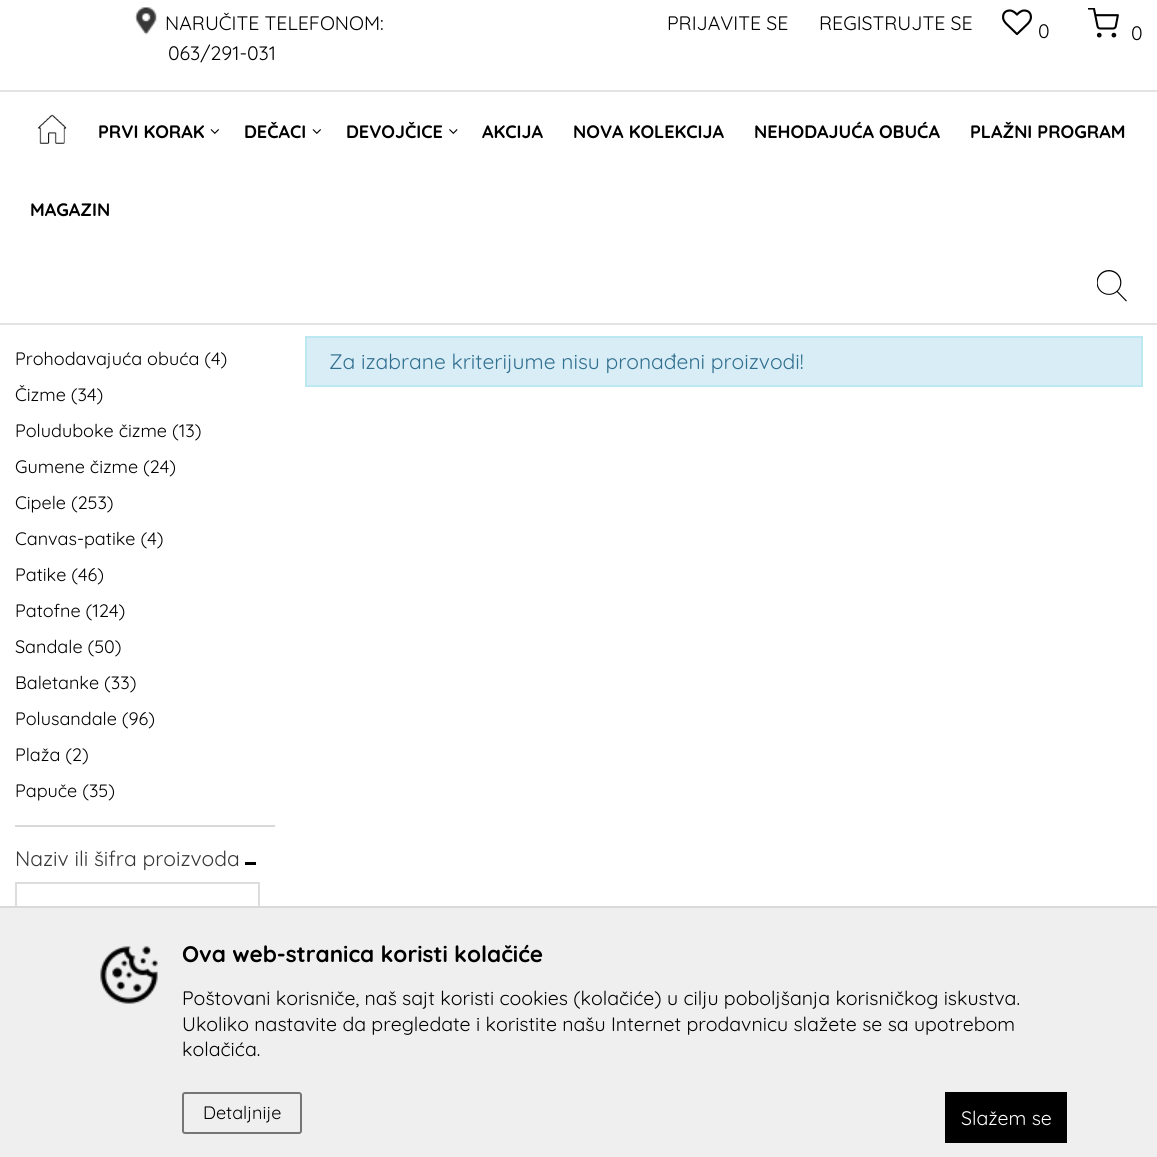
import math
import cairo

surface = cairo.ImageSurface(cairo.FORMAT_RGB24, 1157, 1157)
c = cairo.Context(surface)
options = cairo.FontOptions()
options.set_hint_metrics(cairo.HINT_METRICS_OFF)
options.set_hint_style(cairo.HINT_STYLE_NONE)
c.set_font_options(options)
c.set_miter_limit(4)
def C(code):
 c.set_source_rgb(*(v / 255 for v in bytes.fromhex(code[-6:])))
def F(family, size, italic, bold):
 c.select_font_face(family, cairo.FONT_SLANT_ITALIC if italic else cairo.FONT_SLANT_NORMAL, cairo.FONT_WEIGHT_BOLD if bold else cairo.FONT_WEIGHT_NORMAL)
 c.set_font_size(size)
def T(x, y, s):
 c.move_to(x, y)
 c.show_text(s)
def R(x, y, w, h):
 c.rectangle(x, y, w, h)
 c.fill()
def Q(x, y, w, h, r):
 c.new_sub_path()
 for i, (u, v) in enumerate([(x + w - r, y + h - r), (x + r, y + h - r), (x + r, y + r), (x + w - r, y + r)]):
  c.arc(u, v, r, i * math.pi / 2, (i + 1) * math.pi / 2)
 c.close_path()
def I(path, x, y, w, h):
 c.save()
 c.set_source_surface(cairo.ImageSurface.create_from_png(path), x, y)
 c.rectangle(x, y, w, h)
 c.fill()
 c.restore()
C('ffffff')
c.paint()
I('1.png',135,7,22,28)
F('Quicksand',19.5,0,0)
C('000000')
T(165,30,'NARUČITE TELEFONOM:')
T(168,60,'063/291-031')
T(667,30,'PRIJAVITE SE')
T(819,30,'REGISTRUJTE SE')
I('2.png',1002,9,30,27)
T(1038,38,'0')
I('3.png',1088,8,31,30)
T(1131,40,'0')
C('e3e3e3')
R(0,90,1157,2)
R(0,323,1157,2)
I('4.png',38,114,29,30)
F('Quicksand',18,0,1)
C('000000')
T(98,138,'PRVI KORAK')
I('5.png',210,129,9,5)
T(244,138,'DEČACI')
I('5.png',312,129,9,5)
T(346,138,'DEVOJČICE')
I('6.png',449,129,9,5)
T(482,138,'AKCIJA')
T(573,138,'NOVA KOLEKCIJA')
T(754,138,'NEHODAJUĆA OBUĆA')
T(970,138,'PLAŽNI PROGRAM')
T(30,216,'MAGAZIN')
I('7.png',1097,270,30,32)
C('d9d9d9')
R(15,825,260,2)
F('Quicksand',18,0,0)
C('000000')
T(15,365,'Prohodavajuća obuća (4)')
T(15,401,'Čizme (34)')
T(15,437,'Poluduboke čizme (13)')
T(15,473,'Gumene čizme (24)')
T(15,509,'Cipele (253)')
T(15,545,'Canvas-patike (4)')
T(15,581,'Patike (46)')
T(15,617,'Patofne (124)')
T(15,653,'Sandale (50)')
T(15,689,'Baletanke (33)')
T(15,725,'Polusandale (96)')
T(15,761,'Plaža (2)')
T(15,797,'Papuče (35)')
F('Quicksand',21,0,0)
C('373737')
T(15,866,'Naziv ili šifra proizvoda')
C('000000')
R(245,862,11,3)
c.rectangle(16,883,243,43)
C('dddddd')
c.stroke()
C('d9edf7')
c.rectangle(306,337,836,49)
c.fill_preserve()
C('bce8f1')
c.stroke()
C('31708f')
T(329,369,'Za izabrane kriterijume nisu pronađeni proizvodi!')
c.rectangle(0,907,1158,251)
C('d9d9d9')
c.stroke()
C('efefef')
R(0,908,1157,249)
I('8.png',100,946,58,58)
F('Quicksand',22.5,0,1)
C('000000')
T(182,962,'Ova web-stranica koristi kolačiće')
F('Quicksand',19.5,0,0)
T(182,1005,'Poštovani korisniče, naš sajt koristi cookies (kolačiće) u cilju poboljšanja korisničkog iskustva.')
T(182,1031,'Ukoliko nastavite da pregledate i koristite našu Internet prodavnicu slažete se sa upotrebom')
T(182,1056,'kolačića.')
Q(183,1093,118,40,2)
C('767676')
c.stroke()
F('Quicksand',18,0,0)
C('000000')
T(203,1119,'Detaljnije')
R(945,1092,122,51)
F('Quicksand',19.5,0,0)
C('ffffff')
T(961,1125,'Slažem se')
surface.write_to_png('o.png')
